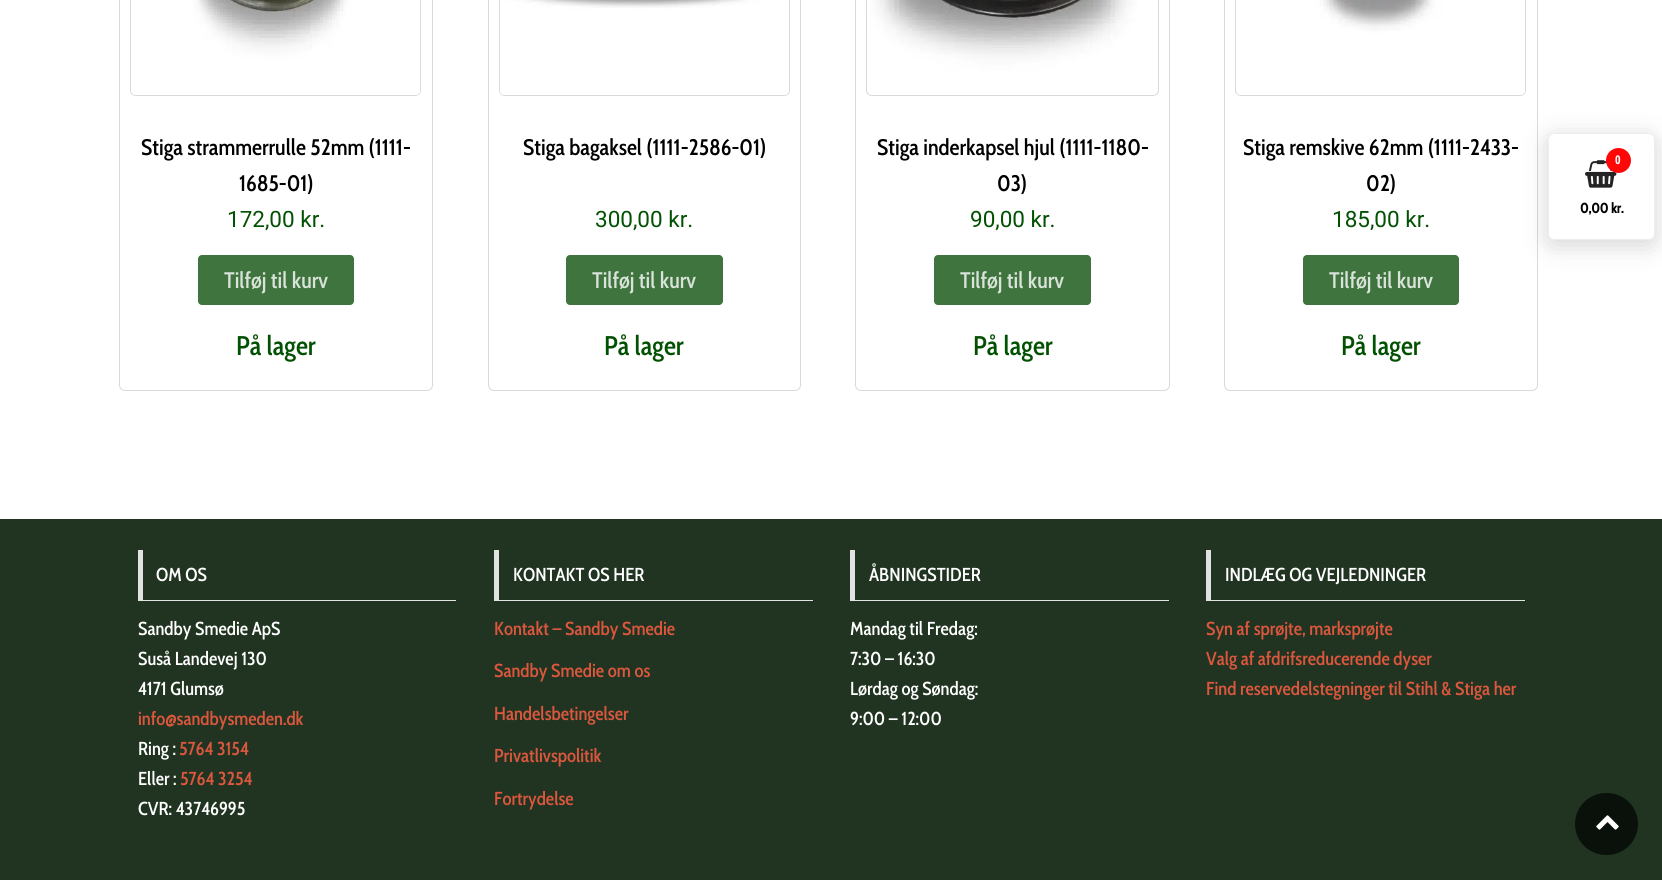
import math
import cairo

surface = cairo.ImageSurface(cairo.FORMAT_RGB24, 1662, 880)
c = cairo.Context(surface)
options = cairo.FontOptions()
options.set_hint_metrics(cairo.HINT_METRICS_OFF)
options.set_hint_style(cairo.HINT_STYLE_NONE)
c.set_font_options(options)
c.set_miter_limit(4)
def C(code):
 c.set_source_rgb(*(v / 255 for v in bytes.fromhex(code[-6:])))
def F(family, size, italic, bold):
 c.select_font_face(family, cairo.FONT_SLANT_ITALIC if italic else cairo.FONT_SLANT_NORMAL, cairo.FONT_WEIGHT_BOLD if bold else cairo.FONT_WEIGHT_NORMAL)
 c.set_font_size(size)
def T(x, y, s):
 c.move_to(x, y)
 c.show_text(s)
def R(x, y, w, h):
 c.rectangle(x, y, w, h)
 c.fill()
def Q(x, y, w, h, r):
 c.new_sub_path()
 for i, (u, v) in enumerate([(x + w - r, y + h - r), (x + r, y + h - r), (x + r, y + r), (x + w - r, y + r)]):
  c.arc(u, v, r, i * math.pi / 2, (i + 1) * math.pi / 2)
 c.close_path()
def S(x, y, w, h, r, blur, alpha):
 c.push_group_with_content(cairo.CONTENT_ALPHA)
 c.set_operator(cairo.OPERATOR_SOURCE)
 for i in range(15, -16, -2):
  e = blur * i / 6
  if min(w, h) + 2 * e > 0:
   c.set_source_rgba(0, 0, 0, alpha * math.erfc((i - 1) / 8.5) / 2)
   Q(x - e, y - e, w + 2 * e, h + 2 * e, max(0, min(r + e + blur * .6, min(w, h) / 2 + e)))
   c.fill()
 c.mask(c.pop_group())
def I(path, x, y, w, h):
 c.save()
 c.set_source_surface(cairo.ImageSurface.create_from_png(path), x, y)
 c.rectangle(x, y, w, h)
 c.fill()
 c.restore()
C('ffffff')
c.paint()
Q(119.5,-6.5,313,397,5.5)
C('d9d9d9')
c.set_line_width(1)
c.stroke()
Q(130.5,-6.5,290,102,5.5)
c.stroke()
I('1.png',132,0,288,95)
F('Cabin Condensed Medium',22.5,0,0)
C('000000')
T(141,155,'Stiga strammerrulle 52mm (1111-')
T(239,191,'1685-01)')
F('Roboto',22.5,0,0)
C('025102')
T(227,227,'172,00 kr.')
C('3f743f')
Q(198,255,156,50,4)
c.fill()
F('Cabin Condensed Medium',22.5,0,0)
C('d9e3d9')
T(224,288,'Tilføj til kurv')
F('Cabin Condensed Medium',27,0,0)
C('025102')
T(236,355,'På lager')
Q(488.5,-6.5,312,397,5.5)
C('d9d9d9')
c.stroke()
Q(499.5,-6.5,290,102,5.5)
c.stroke()
I('2.png',500,0,288,95)
F('Cabin Condensed Medium',22.5,0,0)
C('000000')
T(523,155,'Stiga bagaksel (1111-2586-01)')
F('Roboto',22.5,0,0)
C('025102')
T(595,227,'300,00 kr.')
C('3f743f')
Q(566,255,157,50,4)
c.fill()
F('Cabin Condensed Medium',22.5,0,0)
C('d9e3d9')
T(592,288,'Tilføj til kurv')
F('Cabin Condensed Medium',27,0,0)
C('025102')
T(604,355,'På lager')
Q(855.5,-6.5,314,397,5.5)
C('d9d9d9')
c.stroke()
Q(866.5,-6.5,292,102,5.5)
c.stroke()
I('3.png',870,0,285,95)
F('Cabin Condensed Medium',22.5,0,0)
C('000000')
T(877,155,'Stiga inderkapsel hjul (1111-1180-')
T(997,191,'03)')
F('Roboto',22.5,0,0)
C('025102')
T(970,227,'90,00 kr.')
C('3f743f')
Q(934,255,157,50,4)
c.fill()
F('Cabin Condensed Medium',22.5,0,0)
C('d9e3d9')
T(960,288,'Tilføj til kurv')
F('Cabin Condensed Medium',27,0,0)
C('025102')
T(973,355,'På lager')
Q(1224.5,-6.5,313,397,5.5)
C('d9d9d9')
c.stroke()
Q(1235.5,-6.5,290,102,5.5)
c.stroke()
I('4.png',1237,0,288,95)
F('Cabin Condensed Medium',22.5,0,0)
C('000000')
T(1243,155,'Stiga remskive 62mm (1111-2433-')
T(1366,191,'02)')
F('Roboto',22.5,0,0)
C('025102')
T(1332,227,'185,00 kr.')
C('3f743f')
Q(1303,255,156,50,4)
c.fill()
F('Cabin Condensed Medium',22.5,0,0)
C('d9e3d9')
T(1329,288,'Tilføj til kurv')
F('Cabin Condensed Medium',27,0,0)
C('025102')
T(1341,355,'På lager')
C('000000')
S(1548,138,107,107,6,12.5,.17)
C('ffffff')
Q(1548.5,133.5,106,106,5.5)
c.fill_preserve()
C('ededed')
c.stroke()
I('5.png',1585,160,32,28)
C('ff0707')
c.arc(1618.5,160.5,12.5,0,2 * math.pi)
c.fill()
F('Open Sans Condensed',12,0,1)
C('ffffff')
T(1615,164,'0')
F('Cabin Condensed',14,0,1)
C('000000')
T(1580,213,'0,00 kr.')
C('213421')
R(0,519,1662,361)
C('e2e2e2')
R(138,600,318,1)
R(138,550,5,50)
F('Cabin Condensed Medium',18.75,0,0)
C('ffffff')
T(156,581,'OM OS')
T(138,635,'Sandby Smedie ApS')
T(138,665,'Suså Landevej 130')
T(138,695,'4171 Glumsø')
C('dd573e')
T(138,725,'info@sandbysmeden.dk')
C('ffffff')
T(138,755,'Ring :')
C('dd573e')
T(179,755,'5764 3154')
C('ffffff')
T(138,785,'Eller :')
C('dd573e')
T(180,785,'5764 3254')
C('ffffff')
T(138,815,'CVR: 43746995')
C('e2e2e2')
R(494,600,319,1)
R(494,550,5,50)
C('ffffff')
T(513,581,'KONTAKT OS HER')
C('dd573e')
T(494,635,'Kontakt – Sandby Smedie')
T(494,677,'Sandby Smedie om os')
T(494,720,'Handelsbetingelser')
T(494,762,'Privatlivspolitik')
T(494,805,'Fortrydelse')
C('e2e2e2')
R(850,600,319,1)
R(850,550,5,50)
C('ffffff')
T(869,581,'ÅBNINGSTIDER')
T(850,635,'Mandag til Fredag:')
T(850,665,'7:30 – 16:30')
T(850,695,'Lørdag og Søndag:')
T(850,725,'9:00 – 12:00')
C('e2e2e2')
R(1206,600,319,1)
R(1206,550,5,50)
C('ffffff')
T(1225,581,'INDLÆG OG VEJLEDNINGER')
C('dd573e')
T(1206,635,'Syn af sprøjte, marksprøjte')
T(1206,665,'Valg af afdrifsreducerende dyser')
T(1206,695,'Find reservedelstegninger til Stihl & Stiga her')
C('0a100a')
Q(1575,793,63,62,31)
c.fill()
I('6.png',1596,815,23,15)
surface.write_to_png('o.png')
